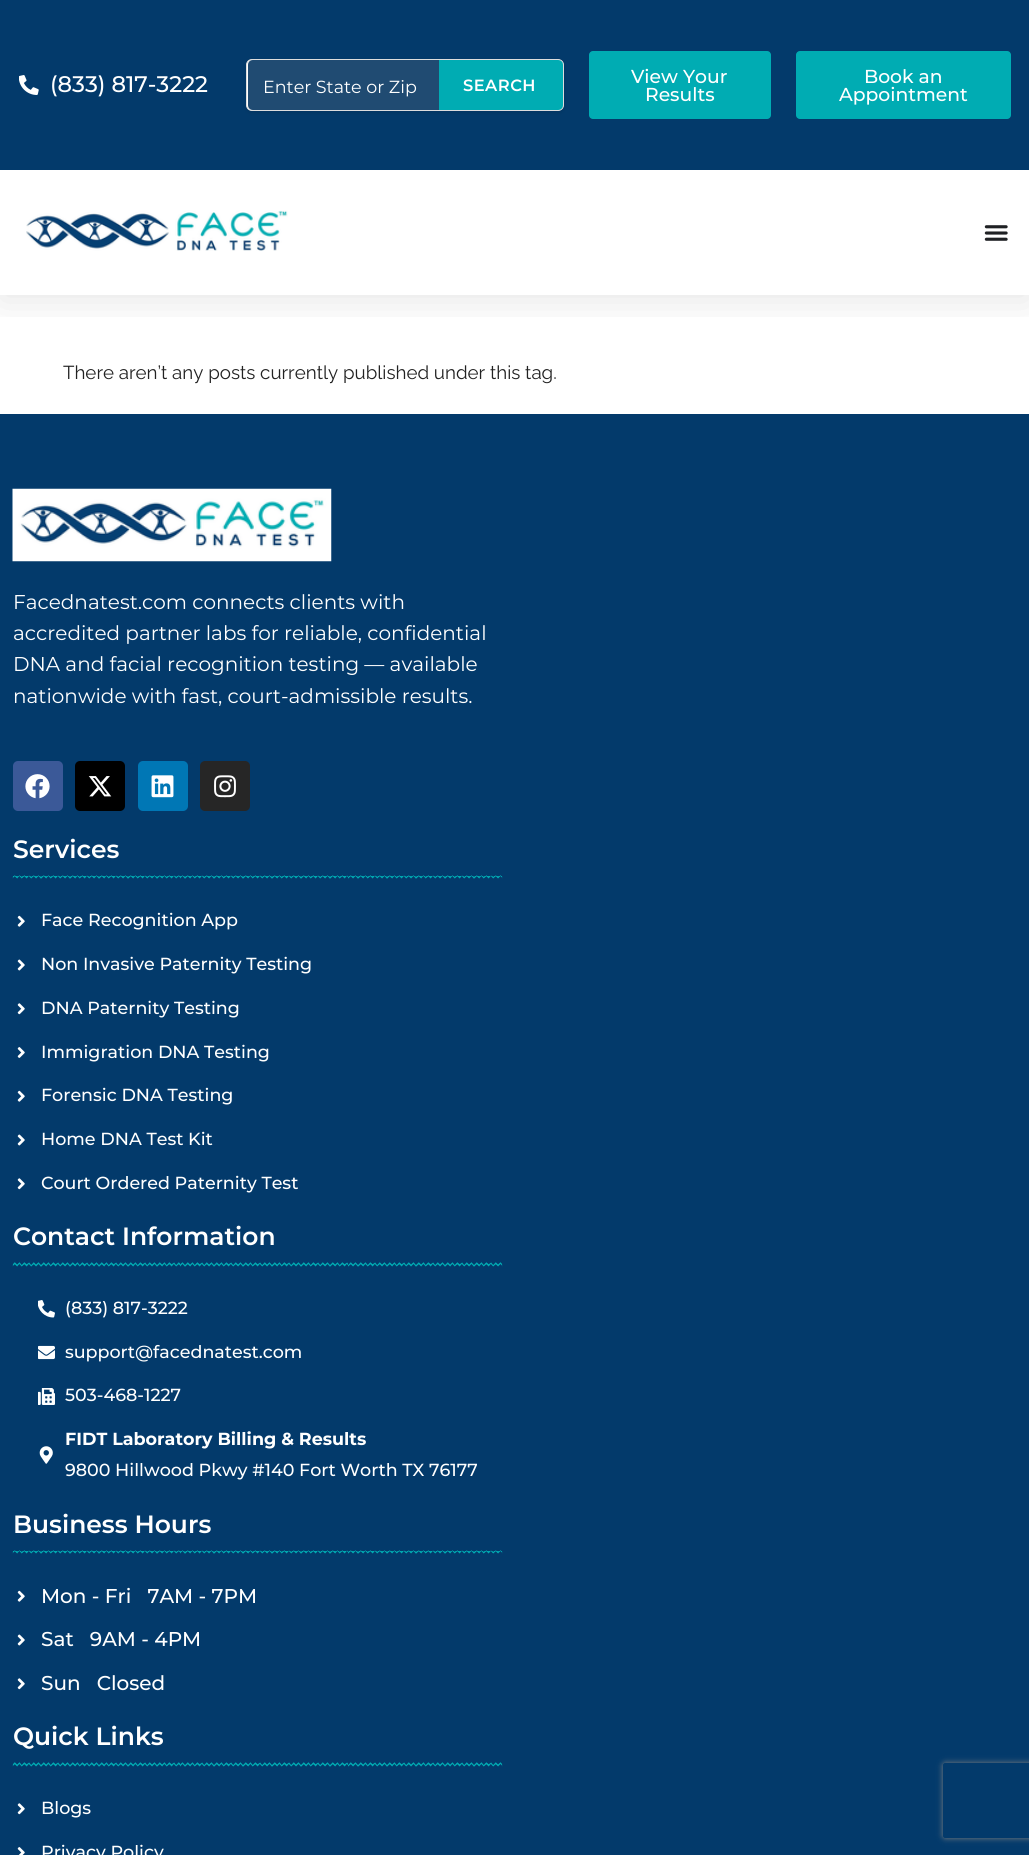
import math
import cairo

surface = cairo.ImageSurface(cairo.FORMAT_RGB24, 1029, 1855)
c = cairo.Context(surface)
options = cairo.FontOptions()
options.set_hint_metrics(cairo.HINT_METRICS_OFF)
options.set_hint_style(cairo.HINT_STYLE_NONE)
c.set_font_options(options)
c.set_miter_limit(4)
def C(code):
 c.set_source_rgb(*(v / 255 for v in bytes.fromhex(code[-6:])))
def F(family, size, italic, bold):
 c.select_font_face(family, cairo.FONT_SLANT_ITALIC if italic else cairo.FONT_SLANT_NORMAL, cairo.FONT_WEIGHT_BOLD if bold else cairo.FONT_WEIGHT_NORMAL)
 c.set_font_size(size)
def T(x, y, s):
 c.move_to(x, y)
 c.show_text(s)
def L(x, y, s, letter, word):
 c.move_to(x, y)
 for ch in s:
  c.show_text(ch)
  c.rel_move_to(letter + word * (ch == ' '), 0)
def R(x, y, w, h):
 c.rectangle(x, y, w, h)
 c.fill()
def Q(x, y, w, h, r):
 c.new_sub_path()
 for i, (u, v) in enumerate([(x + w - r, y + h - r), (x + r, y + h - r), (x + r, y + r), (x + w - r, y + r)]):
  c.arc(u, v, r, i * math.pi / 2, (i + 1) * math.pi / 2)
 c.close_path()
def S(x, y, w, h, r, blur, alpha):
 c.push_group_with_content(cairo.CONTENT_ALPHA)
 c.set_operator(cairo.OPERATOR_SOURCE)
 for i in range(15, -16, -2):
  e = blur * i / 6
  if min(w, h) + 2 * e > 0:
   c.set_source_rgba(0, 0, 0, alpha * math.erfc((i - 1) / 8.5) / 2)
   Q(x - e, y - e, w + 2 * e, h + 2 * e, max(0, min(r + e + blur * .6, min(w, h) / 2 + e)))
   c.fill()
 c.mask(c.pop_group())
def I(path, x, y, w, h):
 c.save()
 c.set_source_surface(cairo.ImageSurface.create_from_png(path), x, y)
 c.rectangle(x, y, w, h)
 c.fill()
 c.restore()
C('ffffff')
c.paint()
c.save()
c.rectangle(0,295,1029,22)
c.clip()
C('000000')
S(0,6,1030,295,0,19,.1)
c.restore()
C('033a6b')
R(0,0,1029,170)
I('1.png',19,75,20,20)
F('Montserrat Medium',22.5,0,0)
C('ffffff')
T(50,92,'(833) 817-3222')
C('000000')
S(246,60,318,53,6,2,.1)
C('ffffff')
Q(246.5,59.5,317,51,5.5)
c.fill_preserve()
C('dddddd')
c.set_line_width(1)
c.stroke()
C('204b72')
c.new_path()
c.move_to(253,60)
c.line_to(439,60)
c.line_to(439,110)
c.line_to(253,110)
c.curve_to(250,110,248,108,248,105)
c.line_to(248,65)
c.curve_to(248,62,250,60,253,60)
c.close_path()
c.fill()
F('Montserrat',17.5,0,0)
C('ffffff')
T(263,93,'Enter State or Zip')
C('00acb3')
c.new_path()
c.move_to(439,60)
c.line_to(558,60)
c.curve_to(561,60,563,62,563,65)
c.line_to(563,105)
c.curve_to(563,108,561,110,558,110)
c.line_to(439,110)
c.close_path()
c.fill()
F('Montserrat SemiBold',16.25,0,0)
C('ffffff')
L(463,91,'SEARCH',.5,0)
C('00acb3')
Q(589,51,182,68,4)
c.fill()
F('Montserrat Medium',18.75,0,0)
C('ffffff')
T(631,83,'View Your')
T(645,101,'Results')
C('00acb3')
Q(796,51,215,68,4)
c.fill()
C('ffffff')
T(864,83,'Book an')
T(839,101,'Appointment')
I('2.png',26,210,262,41)
I('3.png',984,225,24,16)
F('Raleway',18.75,0,0)
C('222222')
T(63,379,'There aren’t any posts currently published under this tag.')
C('033a6b')
R(0,414,1029,1441)
I('4.png',12,488,320,74)
F('Montserrat',20,0,0)
C('ffffff')
T(13,609,'Facednatest.com connects clients with')
T(13,640,'accredited partner labs for reliable, confidential')
T(13,671,'DNA and facial recognition testing — available')
T(13,703,'nationwide with fast, court-admissible results.')
C('3b5998')
Q(13,761,50,50,5)
c.fill()
I('5.png',25,774,25,25)
C('000000')
Q(75,761,50,50,5)
c.fill()
I('6.png',88,776,24,21)
C('0077b5')
Q(138,761,50,50,5)
c.fill()
I('7.png',151,775,23,23)
C('262626')
Q(200,761,50,50,5)
c.fill()
I('8.png',214,775,22,23)
F('Montserrat SemiBold',25,0,0)
C('ffffff')
T(13,858,'Services')
I('9.png',12,875,491,4)
I('10.png',17,915,8,12)
F('Montserrat Medium',17.5,0,0)
T(41,926,'Face Recognition App')
I('11.png',17,959,8,12)
T(41,970,'Non Invasive Paternity Testing')
I('12.png',17,1003,8,12)
T(41,1014,'DNA Paternity Testing')
I('13.png',17,1047,8,11)
T(41,1058,'Immigration DNA Testing')
I('10.png',17,1090,8,12)
T(41,1101,'Forensic DNA Testing')
I('11.png',17,1134,8,12)
T(41,1145,'Home DNA Test Kit')
I('12.png',17,1178,8,12)
T(41,1189,'Court Ordered Paternity Test')
F('Montserrat SemiBold',25,0,0)
T(13,1245,'Contact Information')
I('14.png',12,1262,491,5)
I('15.png',38,1300,17,18)
F('Montserrat Medium',17.5,0,0)
T(65,1314,'(833) 817-3222')
I('16.png',38,1345,17,15)
T(65,1358,'support@facednatest.com')
I('17.png',38,1388,17,17)
T(65,1401,'503-468-1227')
I('18.png',39,1446,14,18)
F('Montserrat',17.5,0,1)
T(65,1445,'FIDT Laboratory Billing & Results')
F('Montserrat Medium',17.5,0,0)
T(65,1476,'9800 Hillwood Pkwy #140 Fort Worth TX 76177')
F('Montserrat SemiBold',25,0,0)
T(13,1533,'Business Hours')
I('9.png',12,1550,491,4)
I('10.png',17,1590,8,12)
F('Montserrat Medium',20,0,0)
T(41,1603,'Mon - Fri   7AM - 7PM')
I('11.png',17,1634,8,12)
T(41,1646,'Sat   9AM - 4PM')
I('12.png',17,1678,8,12)
T(41,1690,'Sun   Closed')
F('Montserrat SemiBold',25,0,0)
T(13,1745,'Quick Links')
I('14.png',12,1762,491,5)
I('12.png',17,1803,8,12)
F('Montserrat Medium',17.5,0,0)
T(41,1814,'Blogs')
I('19.png',17,1847,8,8)
T(41,1858,'Privacy Policy')
c.save()
c.set_fill_rule(cairo.FILL_RULE_EVEN_ODD)
c.new_path()
c.move_to(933,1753)
c.line_to(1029,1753)
c.line_to(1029,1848)
c.line_to(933,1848)
c.close_path()
c.move_to(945.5,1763)
c.line_to(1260.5,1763)
c.curve_to(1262,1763,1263,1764,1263,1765.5)
c.line_to(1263,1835.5)
c.curve_to(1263,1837,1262,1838,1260.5,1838)
c.line_to(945.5,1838)
c.curve_to(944,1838,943,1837,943,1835.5)
c.line_to(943,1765.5)
c.curve_to(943,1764,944,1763,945.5,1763)
c.close_path()
c.clip()
C('808080')
S(943,1763,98,75,2.5,3,1)
c.restore()
surface.write_to_png('o.png')
